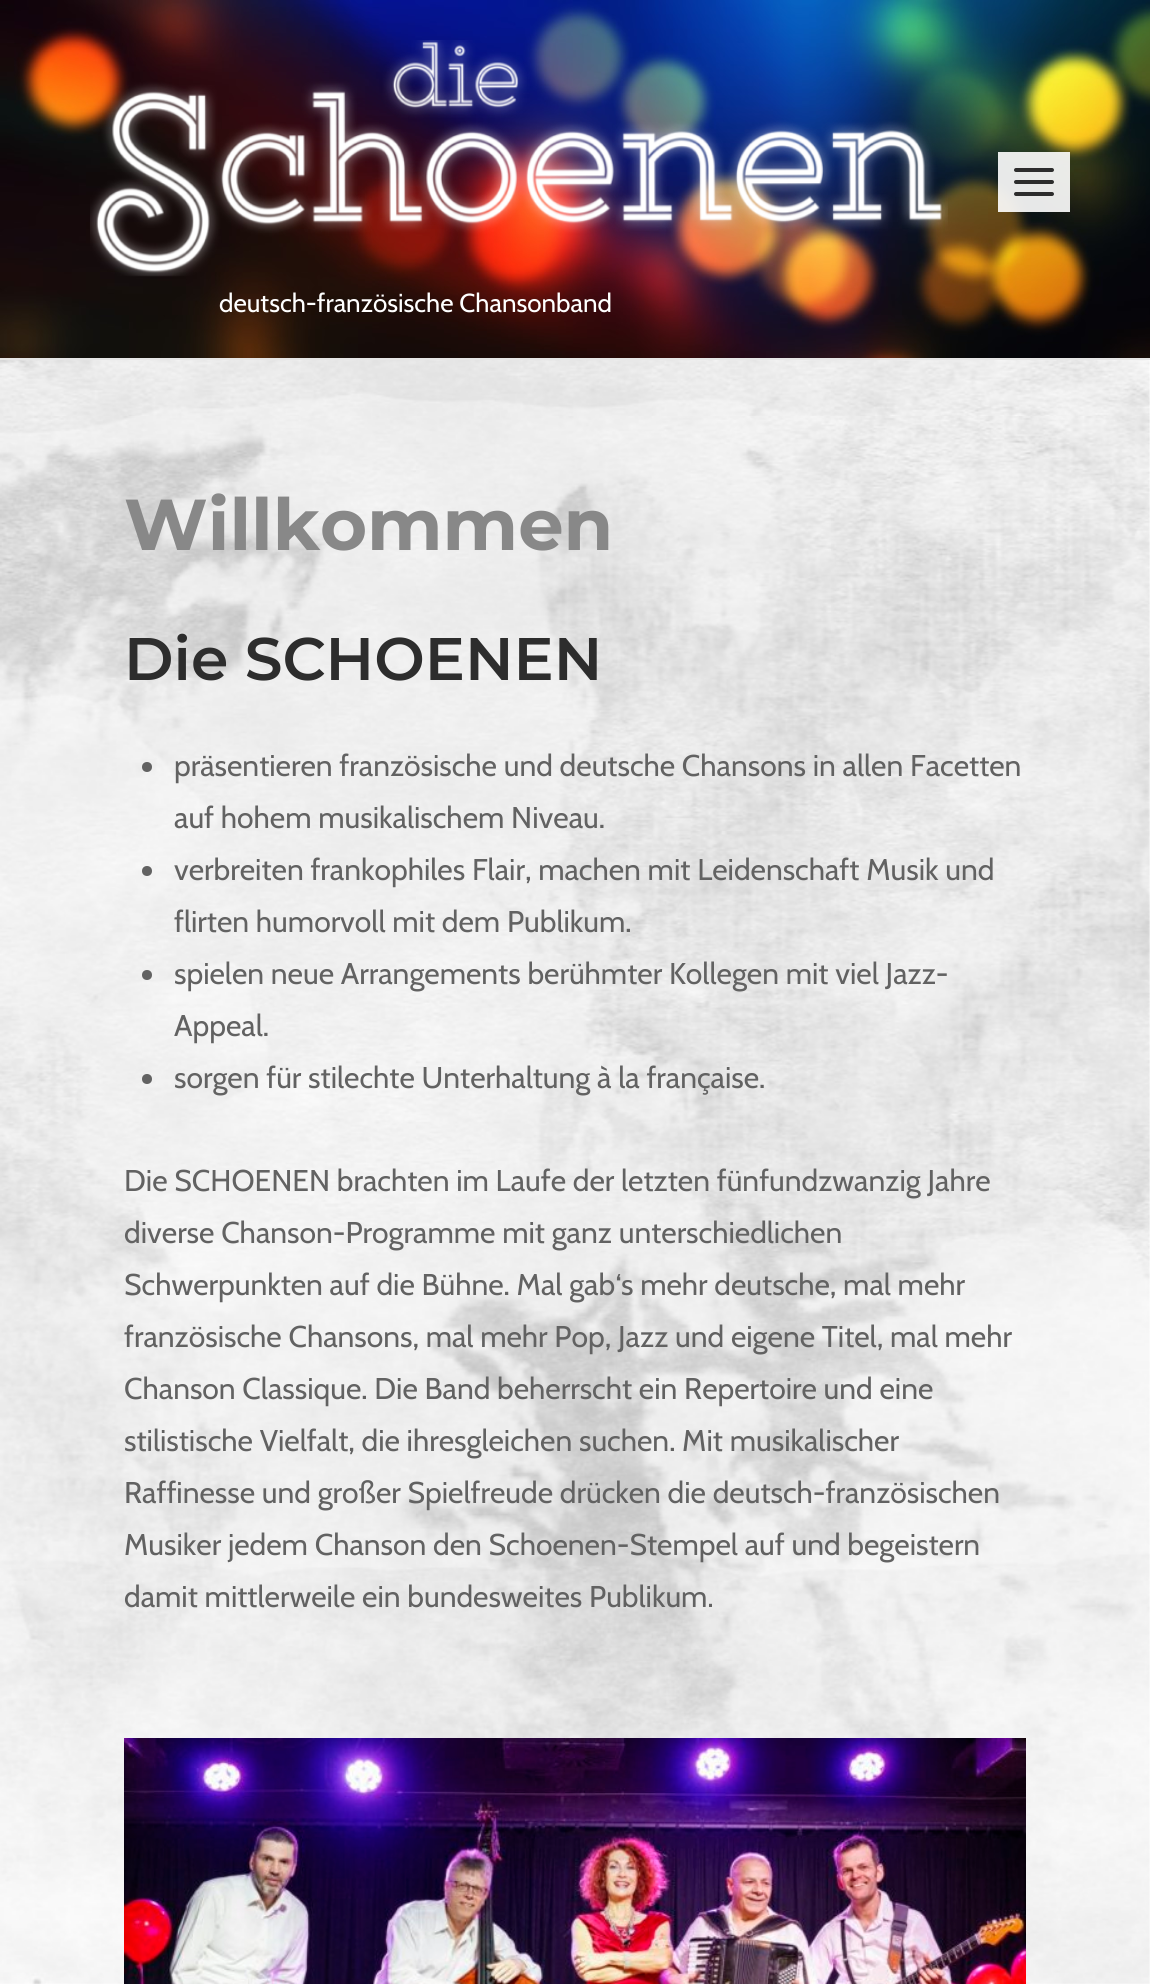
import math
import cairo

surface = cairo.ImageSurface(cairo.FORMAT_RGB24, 1150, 1984)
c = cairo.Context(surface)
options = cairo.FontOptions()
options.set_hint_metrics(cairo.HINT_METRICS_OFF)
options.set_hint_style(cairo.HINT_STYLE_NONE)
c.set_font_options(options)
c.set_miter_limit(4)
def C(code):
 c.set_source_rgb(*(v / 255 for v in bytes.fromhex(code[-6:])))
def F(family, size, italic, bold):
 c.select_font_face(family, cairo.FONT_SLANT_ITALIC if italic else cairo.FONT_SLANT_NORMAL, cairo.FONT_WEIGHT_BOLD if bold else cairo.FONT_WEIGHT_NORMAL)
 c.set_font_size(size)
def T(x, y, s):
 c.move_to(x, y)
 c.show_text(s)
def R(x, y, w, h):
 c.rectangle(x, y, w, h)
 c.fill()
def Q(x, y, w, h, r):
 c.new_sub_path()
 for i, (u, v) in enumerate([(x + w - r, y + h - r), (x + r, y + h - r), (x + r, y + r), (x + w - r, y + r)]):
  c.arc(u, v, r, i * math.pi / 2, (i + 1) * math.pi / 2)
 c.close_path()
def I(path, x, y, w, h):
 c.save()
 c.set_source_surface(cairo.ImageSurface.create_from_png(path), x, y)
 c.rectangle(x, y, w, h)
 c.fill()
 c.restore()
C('ffffff')
c.paint()
I('1.png',0,360,1150,1624)
I('2.png',0,0,1150,358)
C('e6e6e6')
R(0,358,1150,2)
c.set_source_rgba(1,1,1,0.9)
R(998,152,72,60)
C('2d2d2d')
Q(1014,168,40,4,2)
c.fill()
Q(1014,180,40,4,2)
c.fill()
Q(1014,192,40,4,2)
c.fill()
I('3.png',90,40,858,237)
F('Cabin',26,0,0)
C('ffffff')
T(219,312,'deutsch-französische Chansonband')
F('Montserrat',72,0,1)
C('888888')
T(124,550,'Willkommen')
F('Montserrat SemiBold',60,0,0)
C('2d2d2d')
T(124,680,'Die SCHOENEN')
C('626262')
c.new_path()
c.arc(147,767,5,0,2 * math.pi)
c.fill()
F('Cabin',30,0,0)
T(174,776,'präsentieren französische und deutsche Chansons in allen Facetten')
T(174,828,'auf hohem musikalischem Niveau.')
c.new_path()
c.arc(147,871,5,0,2 * math.pi)
c.fill()
T(174,880,'verbreiten frankophiles Flair, machen mit Leidenschaft Musik und')
T(174,932,'flirten humorvoll mit dem Publikum.')
c.new_path()
c.arc(147,975,5,0,2 * math.pi)
c.fill()
T(174,984,'spielen neue Arrangements berühmter Kollegen mit viel Jazz-')
T(174,1036,'Appeal.')
c.new_path()
c.arc(147,1079,5,0,2 * math.pi)
c.fill()
T(174,1088,'sorgen für stilechte Unterhaltung à la française.')
T(124,1191,'Die SCHOENEN brachten im Laufe der letzten fünfundzwanzig Jahre')
T(124,1243,'diverse Chanson-Programme mit ganz unterschiedlichen')
T(124,1295,'Schwerpunkten auf die Bühne. Mal gab‘s mehr deutsche, mal mehr')
T(124,1347,'französische Chansons, mal mehr Pop, Jazz und eigene Titel, mal mehr')
T(124,1399,'Chanson Classique. Die Band beherrscht ein Repertoire und eine')
T(124,1451,'stilistische Vielfalt, die ihresgleichen suchen. Mit musikalischer')
T(124,1503,'Raffinesse und großer Spielfreude drücken die deutsch-französischen')
T(124,1555,'Musiker jedem Chanson den Schoenen-Stempel auf und begeistern')
T(124,1607,'damit mittlerweile ein bundesweites Publikum.')
I('4.png',124,1738,902,246)
surface.write_to_png('o.png')
